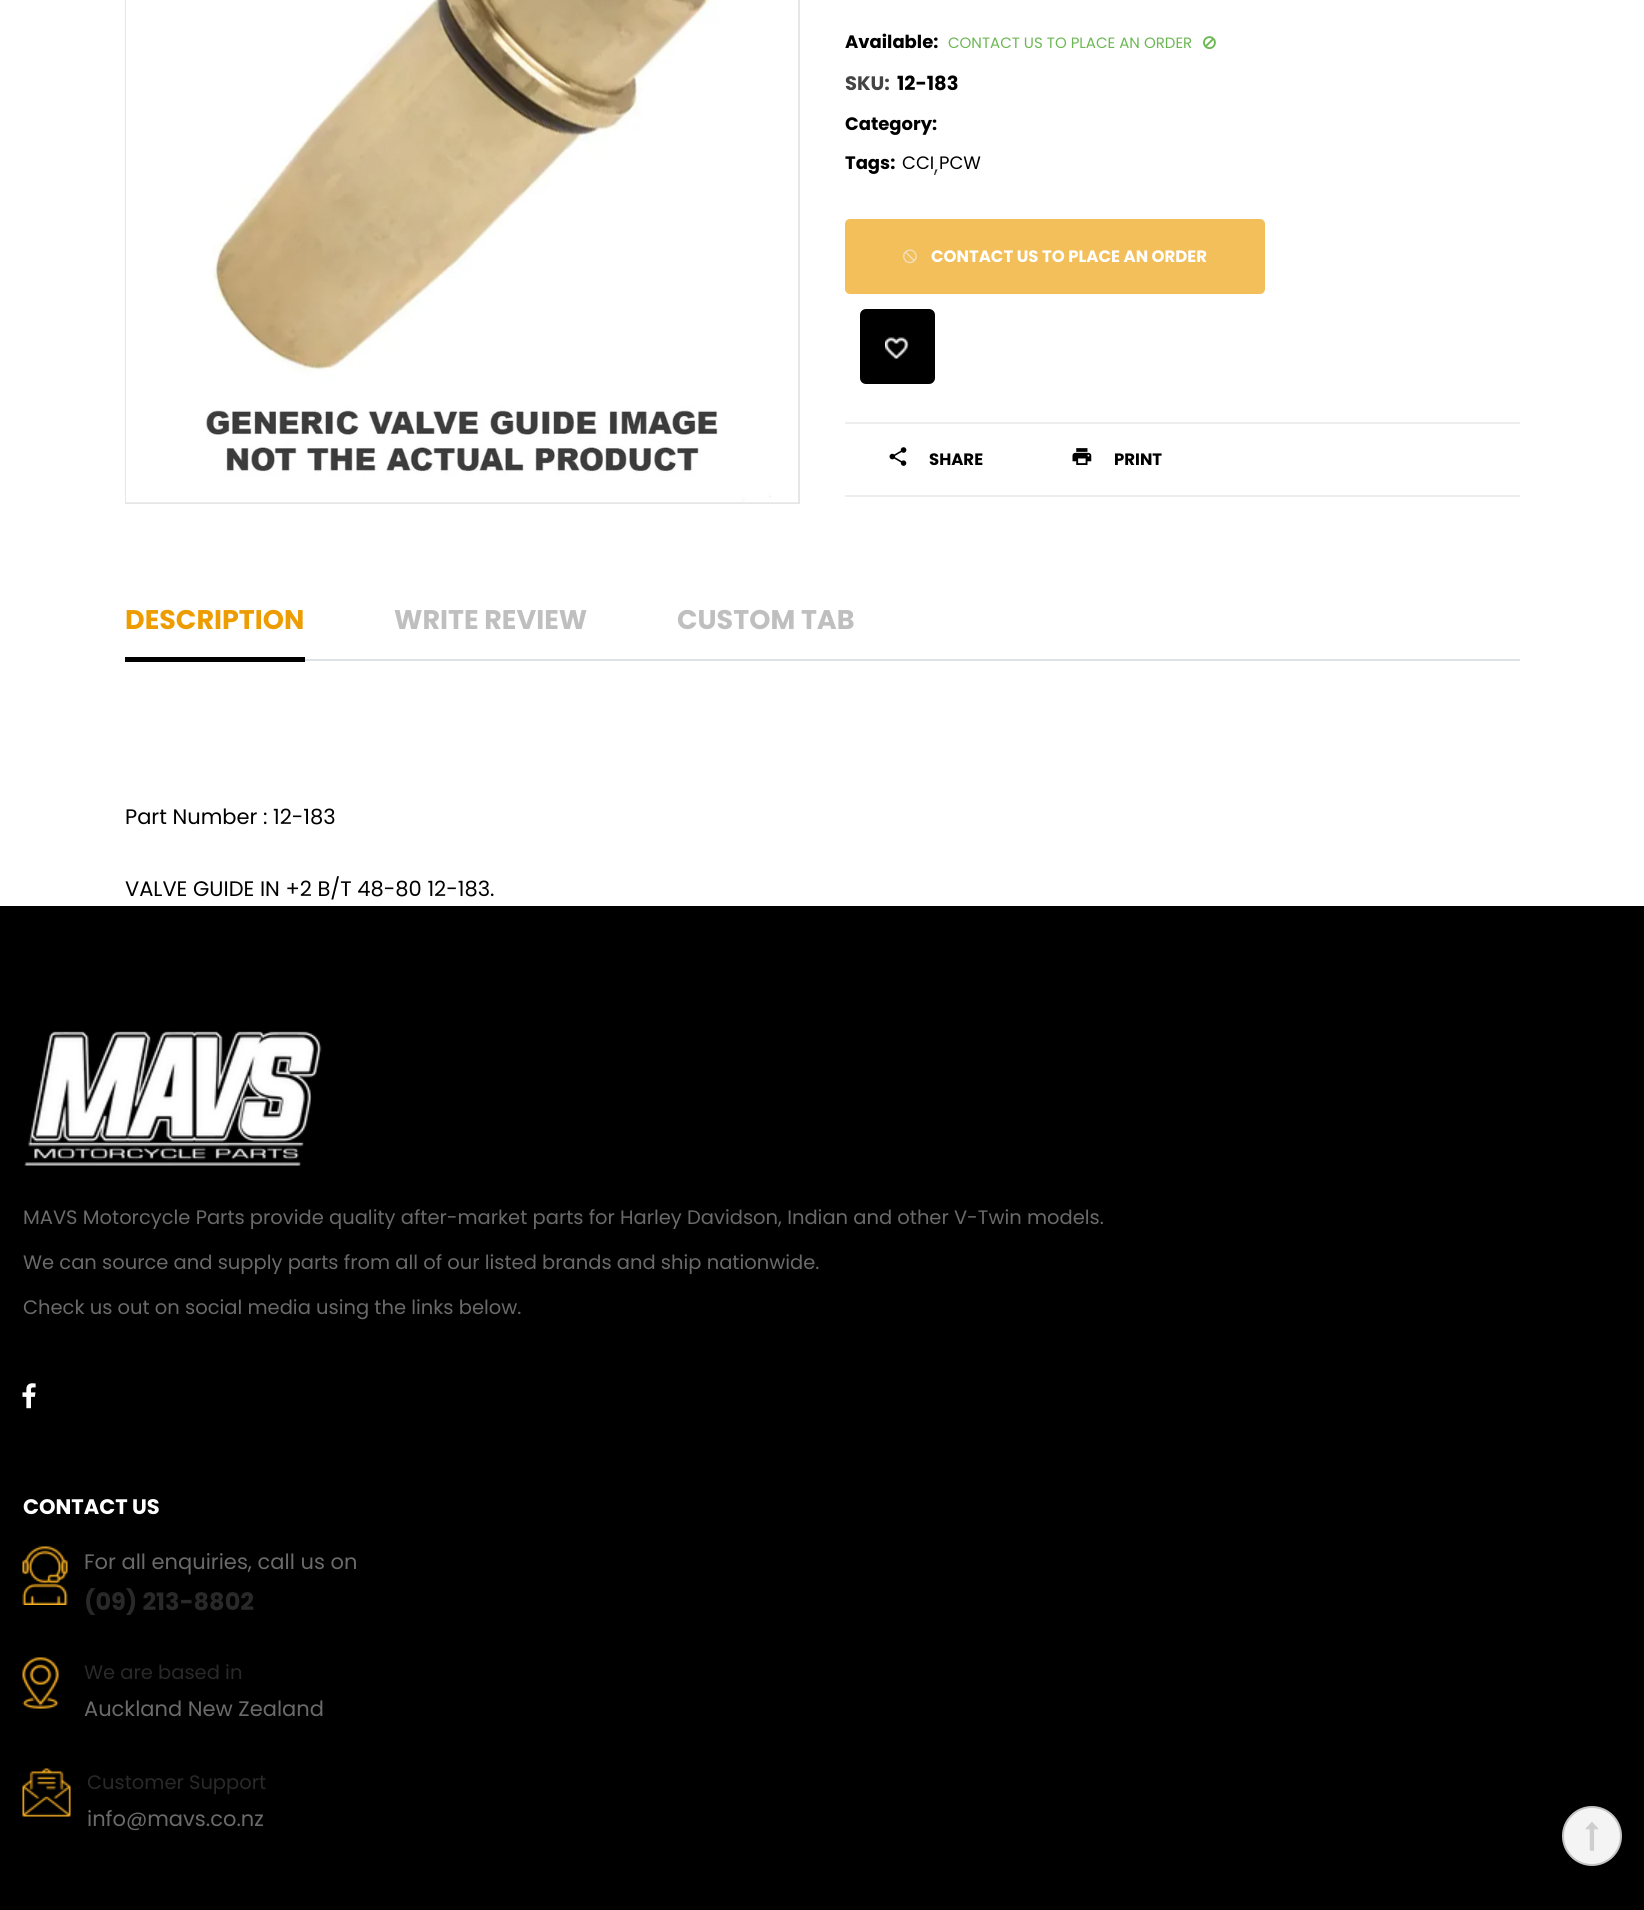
import math
import cairo

surface = cairo.ImageSurface(cairo.FORMAT_RGB24, 1644, 1910)
c = cairo.Context(surface)
options = cairo.FontOptions()
options.set_hint_metrics(cairo.HINT_METRICS_OFF)
options.set_hint_style(cairo.HINT_STYLE_NONE)
c.set_font_options(options)
c.set_miter_limit(4)
def C(code):
 c.set_source_rgb(*(v / 255 for v in bytes.fromhex(code[-6:])))
def F(family, size, italic, bold):
 c.select_font_face(family, cairo.FONT_SLANT_ITALIC if italic else cairo.FONT_SLANT_NORMAL, cairo.FONT_WEIGHT_BOLD if bold else cairo.FONT_WEIGHT_NORMAL)
 c.set_font_size(size)
def T(x, y, s):
 c.move_to(x, y)
 c.show_text(s)
def R(x, y, w, h):
 c.rectangle(x, y, w, h)
 c.fill()
def Q(x, y, w, h, r):
 c.new_sub_path()
 for i, (u, v) in enumerate([(x + w - r, y + h - r), (x + r, y + h - r), (x + r, y + r), (x + w - r, y + r)]):
  c.arc(u, v, r, i * math.pi / 2, (i + 1) * math.pi / 2)
 c.close_path()
def I(path, x, y, w, h):
 c.save()
 c.set_source_surface(cairo.ImageSurface.create_from_png(path), x, y)
 c.rectangle(x, y, w, h)
 c.fill()
 c.restore()
C('ffffff')
c.paint()
c.rectangle(126,-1,673,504)
C('e6e6e6')
c.stroke()
I('1.png',126,0,672,503)
F('Poppins',18,0,1)
C('000000')
T(845,48,'Available:')
F('Poppins',15,0,0)
C('6bb853')
T(948,48,'CONTACT US TO PLACE AN ORDER')
I('2.png',1203,36,13,14)
F('Poppins',19.5,0,1)
C('444444')
T(845,90,'SKU:')
C('000000')
T(897,90,'12-183')
F('Poppins',18,0,1)
T(845,130,'Category:')
T(845,169,'Tags:')
F('Poppins',18,0,0)
T(902,169,'CCI')
T(939,169,'PCW')
F('Poppins',21,0,0)
C('383838')
T(934,172,',')
C('f3bf5a')
Q(845,219,420,75,5)
c.fill()
I('3.png',903,249,14,15)
F('Poppins',16.5,0,1)
C('ffffff')
T(931,262,'CONTACT US TO PLACE AN ORDER')
C('000000')
Q(860,309,75,75,6)
c.fill()
I('4.png',885,337,24,22)
C('eeeeee')
R(845,422,675,2)
R(845,495,675,2)
I('5.png',889,447,18,19)
C('000000')
T(929,465,'SHARE')
I('6.png',1072,448,20,17)
T(1114,465,'PRINT')
C('dee2e6')
R(305,659,1215,2)
F('Poppins',27,0,1)
C('ed9d01')
T(125,629,'DESCRIPTION')
C('000000')
R(125,657,180,5)
C('bfbfbf')
T(394,629,'WRITE REVIEW')
T(677,629,'CUSTOM TAB')
F('Poppins',21,0,0)
C('000000')
T(125,824,'Part Number : 12-183')
T(125,896,'VALVE GUIDE IN +2 B/T 48-80 12-183.')
R(0,906,1644,1004)
I('7.png',24,1031,298,135)
F('Poppins',19.5,0,0)
C('6a6a6a')
T(23,1224,'MAVS Motorcycle Parts provide quality after-market parts for Harley Davidson, Indian and other V-Twin models.')
T(23,1269,'We can source and supply parts from all of our listed brands and ship nationwide.')
T(23,1314,'Check us out on social media using the links below.')
I('8.png',22,1383,14,26)
F('Poppins',21,0,1)
C('ffffff')
T(23,1514,'CONTACT US')
I('9.png',22,1546,46,59)
F('Poppins',21,0,0)
C('6a6a6a')
T(84,1569,'For all enquiries, call us on')
F('Poppins',24,0,1)
C('292929')
T(84,1610,'(09) 213-8802')
I('10.png',22,1657,37,52)
F('Poppins',19.5,0,0)
T(84,1679,'We are based in')
F('Poppins',21,0,0)
C('6a6a6a')
T(84,1716,'Auckland New Zealand')
I('11.png',22,1768,49,49)
F('Poppins',19.5,0,0)
C('292929')
T(87,1789,'Customer Support')
F('Poppins',21,0,0)
C('6a6a6a')
T(87,1826,'info@mavs.co.nz')
C('f4f4f4')
c.new_path()
c.arc(1592,1836,29,0,2 * math.pi)
c.fill_preserve()
C('c3c3c3')
c.stroke()
I('12.png',1585,1822,14,29)
surface.write_to_png('o.png')
